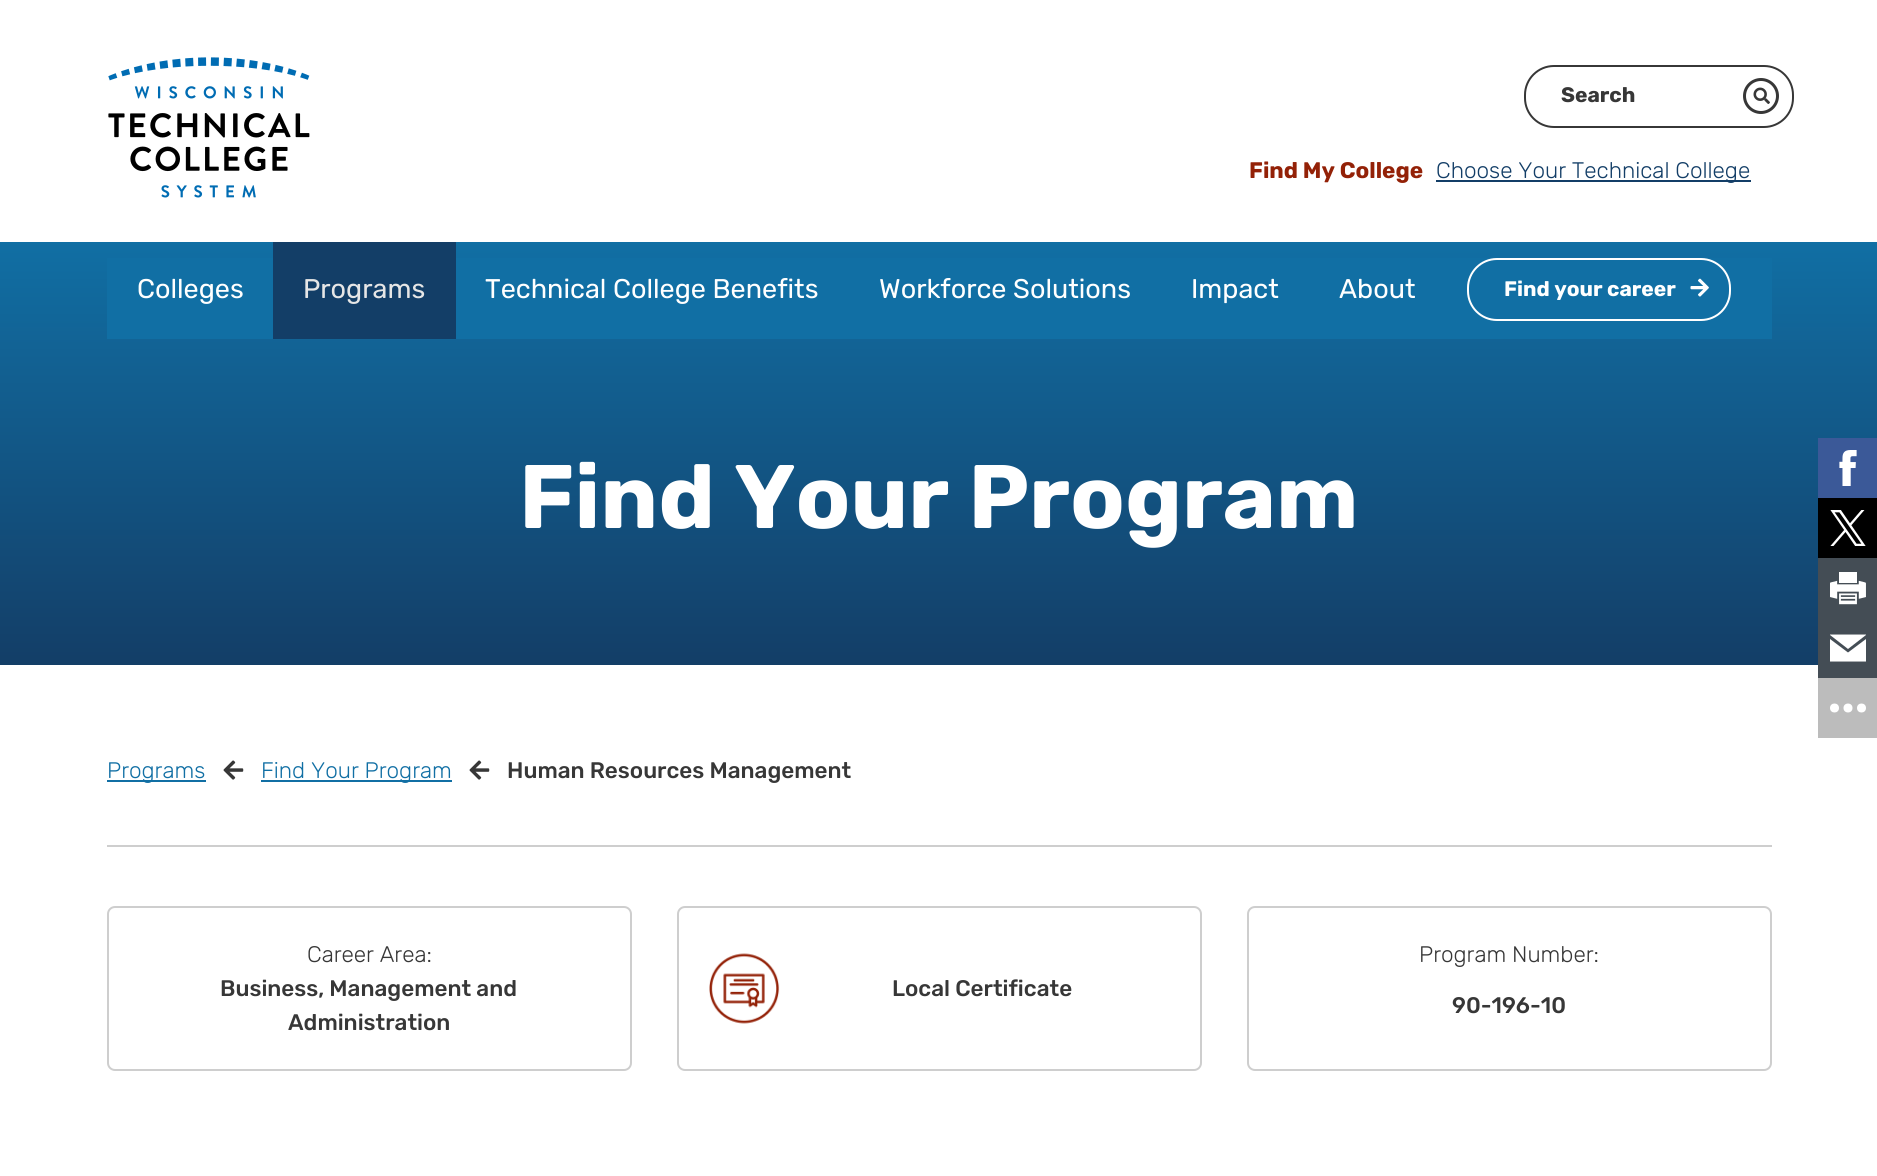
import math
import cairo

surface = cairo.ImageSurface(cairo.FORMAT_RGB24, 1877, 1176)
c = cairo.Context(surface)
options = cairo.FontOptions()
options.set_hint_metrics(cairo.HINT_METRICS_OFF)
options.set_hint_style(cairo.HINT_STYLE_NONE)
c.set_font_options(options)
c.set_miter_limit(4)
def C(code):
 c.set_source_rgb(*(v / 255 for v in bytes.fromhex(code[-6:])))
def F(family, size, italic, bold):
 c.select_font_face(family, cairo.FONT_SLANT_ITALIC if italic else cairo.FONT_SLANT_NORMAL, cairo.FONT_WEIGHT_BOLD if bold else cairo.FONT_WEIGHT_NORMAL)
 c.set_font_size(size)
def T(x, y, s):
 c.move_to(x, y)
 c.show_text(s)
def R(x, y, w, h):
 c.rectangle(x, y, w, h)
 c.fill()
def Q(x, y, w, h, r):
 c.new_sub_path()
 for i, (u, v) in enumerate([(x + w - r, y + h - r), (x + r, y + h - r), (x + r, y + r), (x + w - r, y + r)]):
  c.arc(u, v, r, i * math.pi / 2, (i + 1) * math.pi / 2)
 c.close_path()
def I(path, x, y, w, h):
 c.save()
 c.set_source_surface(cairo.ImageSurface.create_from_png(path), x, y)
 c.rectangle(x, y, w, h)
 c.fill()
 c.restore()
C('ffffff')
c.paint()
I('1.png',108,57,202,141)
Q(1525,66,268,61,29)
C('373737')
c.stroke()
F('Rubik',21,0,1)
T(1561,102,'Search')
c.new_path()
c.arc(1761,96,16.5,0,2 * math.pi)
c.set_line_width(3)
c.stroke()
I('2.png',1753,87,17,17)
F('Rubik',22.5,0,1)
C('932107')
T(1249,178,'Find My College')
C('133e67')
R(1436,180,315,2)
F('Rubik Light',22.5,0,0)
T(1436,178,'Choose Your Technical College')
gradient = cairo.LinearGradient(939,241,939,665)
gradient.add_color_stop_rgba(0,0.067,0.435,0.643,1)
gradient.add_color_stop_rgba(1,0.075,0.243,0.404,1)
c.set_source(gradient)
R(0,242,1877,423)
C('116fa4')
R(107,258,1665,81)
F('Rubik',27,0,0)
C('ffffff')
T(137,298,'Colleges')
C('133e67')
R(273,242,183,97)
C('e6e6e6')
T(303,298,'Programs')
C('ffffff')
T(485,298,'Technical College Benefits')
T(879,298,'Workforce Solutions')
T(1191,298,'Impact')
T(1339,298,'About')
Q(1468,259,262,61,29)
c.set_line_width(2)
c.stroke()
F('Rubik',21,0,1)
T(1504,296,'Find your career')
I('3.png',1690,278,19,19)
F('Rubik',90,0,1)
T(519,528,'Find Your Program')
C('116fa4')
R(107,780,99,2)
F('Rubik Light',22.5,0,0)
T(107,778,'Programs')
I('4.png',223,760,21,20)
R(261,780,191,2)
T(261,778,'Find Your Program')
I('4.png',469,760,21,20)
F('Rubik Medium',22.5,0,0)
C('373737')
T(507,778,'Human Resources Management')
C('cecece')
R(107,845,1665,2)
Q(108,907,523,163,7)
c.stroke()
F('Rubik Light',22.5,0,0)
C('373737')
T(307,962,'Career Area:')
F('Rubik Medium',22.5,0,0)
T(220,996,'Business, Management and')
T(288,1030,'Administration')
Q(678,907,523,163,7)
C('cecece')
c.stroke()
I('5.png',709,953,71,71)
C('373737')
T(892,996,'Local Certificate')
Q(1248,907,523,163,7)
C('cecece')
c.stroke()
F('Rubik Light',22.5,0,0)
C('373737')
T(1419,962,'Program Number:')
F('Rubik Medium',22.5,0,0)
T(1452,1013,'90-196-10')
C('3b5998')
R(1818,438,59,60)
I('6.png',1839,450,18,36)
C('000000')
R(1818,498,59,60)
I('7.png',1830,510,36,36)
C('444d55')
R(1818,558,59,120)
I('8.png',1830,572,36,33)
C('ffffff')
c.new_path()
c.move_to(1848,652.5)
c.line_to(1830,639)
c.line_to(1830,661.5)
c.line_to(1866,661.5)
c.line_to(1866,639)
c.close_path()
c.fill()
c.new_path()
c.move_to(1848,649)
c.line_to(1866,635)
c.line_to(1866,634.5)
c.line_to(1830,634.5)
c.line_to(1830,635)
c.close_path()
c.fill()
C('bcbcbc')
R(1818,678,59,60)
C('ffffff')
c.arc(1834.5,708,4.5,0,2 * math.pi)
c.fill()
c.arc(1848,708,4.5,0,2 * math.pi)
c.fill()
c.arc(1861.5,708,4.5,0,2 * math.pi)
c.fill()
surface.write_to_png('o.png')
